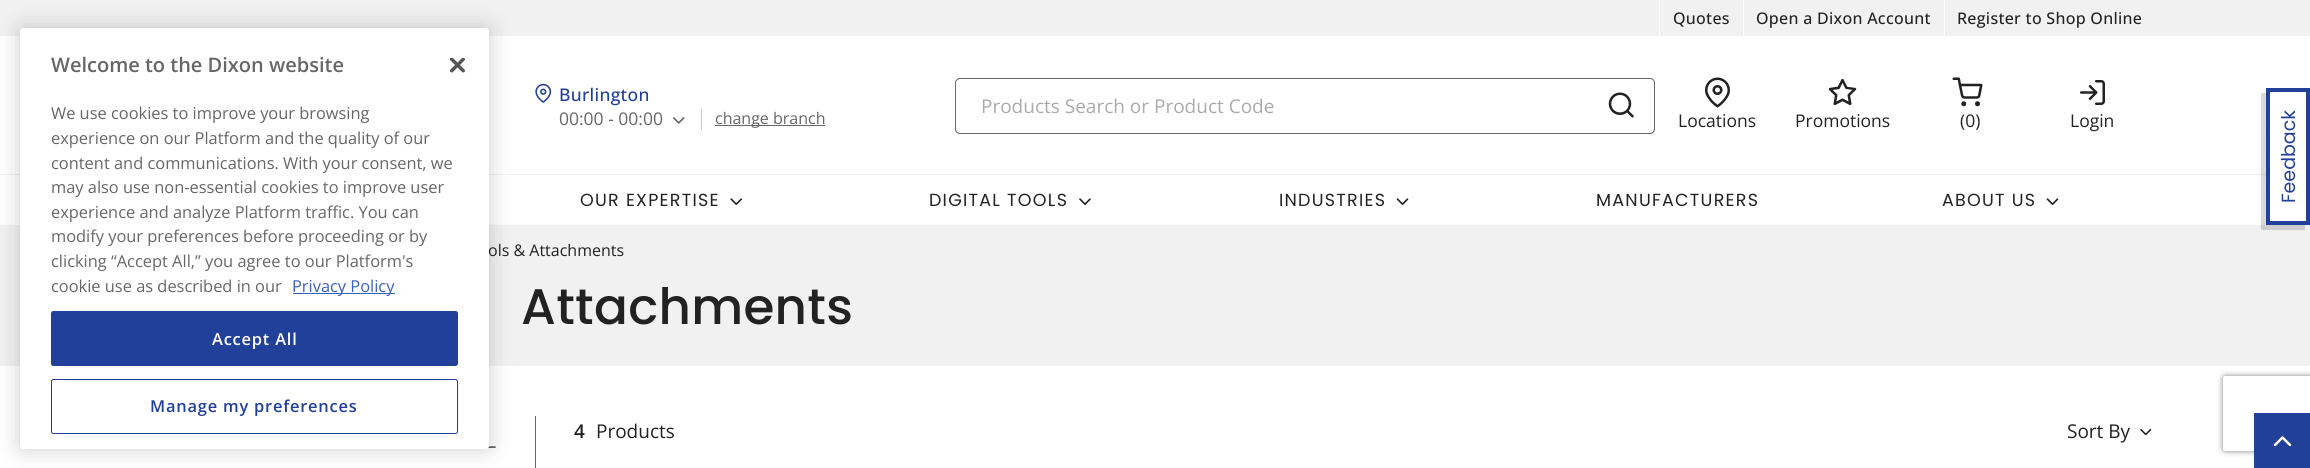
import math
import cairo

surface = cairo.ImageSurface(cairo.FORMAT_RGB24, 2310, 468)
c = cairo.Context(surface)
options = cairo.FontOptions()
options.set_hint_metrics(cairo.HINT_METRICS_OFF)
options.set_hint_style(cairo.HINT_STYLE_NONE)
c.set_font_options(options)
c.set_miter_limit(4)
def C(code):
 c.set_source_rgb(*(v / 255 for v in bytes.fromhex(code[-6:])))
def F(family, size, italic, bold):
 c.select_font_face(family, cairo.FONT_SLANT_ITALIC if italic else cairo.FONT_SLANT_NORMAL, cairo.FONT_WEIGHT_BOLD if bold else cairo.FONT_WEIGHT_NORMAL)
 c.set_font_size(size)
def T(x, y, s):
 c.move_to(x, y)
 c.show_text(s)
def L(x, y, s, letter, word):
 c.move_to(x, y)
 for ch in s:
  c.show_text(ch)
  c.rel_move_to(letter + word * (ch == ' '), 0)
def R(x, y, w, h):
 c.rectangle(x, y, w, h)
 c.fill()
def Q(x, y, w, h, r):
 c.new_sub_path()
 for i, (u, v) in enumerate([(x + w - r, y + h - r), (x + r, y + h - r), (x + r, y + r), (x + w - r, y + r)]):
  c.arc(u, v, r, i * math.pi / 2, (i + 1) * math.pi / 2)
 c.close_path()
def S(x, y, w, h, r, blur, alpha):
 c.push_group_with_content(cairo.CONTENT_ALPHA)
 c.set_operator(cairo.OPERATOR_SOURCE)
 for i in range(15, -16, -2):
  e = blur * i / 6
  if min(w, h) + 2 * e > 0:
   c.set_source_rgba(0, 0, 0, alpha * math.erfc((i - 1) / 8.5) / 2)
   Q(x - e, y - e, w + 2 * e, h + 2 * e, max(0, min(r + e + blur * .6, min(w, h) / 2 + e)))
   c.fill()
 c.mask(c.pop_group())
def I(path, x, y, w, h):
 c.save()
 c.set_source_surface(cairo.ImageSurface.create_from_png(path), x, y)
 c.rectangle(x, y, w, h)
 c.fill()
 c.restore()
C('ffffff')
c.paint()
C('f1f1f1')
R(0,0,2310,36)
C('eeeeee')
R(0,174,2266,1)
C('f1f1f1')
R(0,226,2310,140)
C('eeeeee')
R(0,225,2310,1)
I('12.png',488,446,8,2)
C('000000')
S(20,28,469,421,3,11,.2)
C('ffffff')
Q(20,28,469,421,3)
c.fill()
F('Open Sans SemiBold',20,0,0)
C('666666')
T(51,72,'Welcome to the Dixon website')
F('Open Sans',16.4,0,0)
T(51,119,'We use cookies to improve your browsing')
T(51,144,'experience on our Platform and the quality of our')
T(51,169,'content and communications. With your consent, we')
T(51,193,'may also use non-essential cookies to improve user')
T(51,218,'experience and analyze Platform traffic. You can')
T(51,242,'modify your preferences before proceeding or by')
T(51,267,'clicking “Accept All,” you agree to our Platform\'s')
T(51,292,'cookie use as described in our')
C('3860be')
R(293,293,102,1)
T(292,292,'Privacy Policy')
I('1.png',450,58,15,15)
C('21409a')
Q(51.5,311.5,406,54,2)
c.fill_preserve()
c.set_line_width(1)
c.stroke()
F('Open Sans SemiBold',16.4,0,0)
C('ffffff')
L(212,345,'Accept All',.8,0)
Q(51.5,379.5,406,54,2)
C('21409a')
c.stroke()
L(150,412,'Manage my preferences',.8,0)
C('ffffff')
R(1659,0,1,36)
F('Open Sans Medium',16,0,0)
C('222222')
L(1673,24,'Quotes',.3,0)
C('ffffff')
R(1743,0,1,36)
C('222222')
L(1756,24,'Open a Dixon Account',.3,0)
C('ffffff')
R(1944,0,1,36)
C('222222')
L(1957,24,'Register to Shop Online',.3,0)
I('2.png',535,83,17,20)
F('Open Sans Medium',17.5,0,0)
C('21409a')
L(559,101,'Burlington',.3,0)
C('cccccc')
R(701,109,1,21)
F('Open Sans',17.5,0,0)
C('666666')
T(559,125,'00:00 - 00:00')
I('3.png',673,117,12,7)
R(715,125,110,1)
F('Open Sans',16,0,0)
T(715,124,'change branch')
Q(955.5,78.5,699,55,4.5)
c.stroke()
F('Open Sans',19,0,0)
C('aaaaaa')
T(981,113,'Products Search or Product Code')
I('4.png',1608,92,26,26)
I('5.png',1705,77,25,31)
F('Open Sans',17.5,0,0)
C('222222')
T(1678,127,'Locations')
I('6.png',1828,78,29,28)
T(1795,127,'Promotions')
I('7.png',1952,77,31,30)
T(1960,127,'(0)')
I('8.png',2080,80,25,25)
T(2070,127,'Login')
c.set_source_rgba(0,0,0,0.15)
c.new_path()
c.move_to(2261,93)
c.line_to(2261,230)
c.line_to(2305,230)
c.line_to(2305,225)
c.line_to(2266,225)
c.line_to(2266,93)
c.close_path()
c.fill()
c.rectangle(2268,90,40,133)
C('21409a')
c.set_line_width(4)
c.stroke()
F('Poppins',19,0,0)
c.save()
c.translate(2295,203)
c.rotate(-90 * math.pi / 180)
T(0,0,'Feedback')
c.restore()
F('Poppins',17.5,0,0)
C('222222')
L(580,206,'OUR EXPERTISE',1.25,0)
I('9.png',730,198,12,7)
L(929,206,'DIGITAL TOOLS',1.25,0)
I('10.png',1079,198,12,7)
L(1279,206,'INDUSTRIES',1.25,0)
I('11.png',1396,198,13,7)
L(1596,206,'MANUFACTURERS',1.25,0)
L(1942,206,'ABOUT US',1.25,0)
I('11.png',2046,198,13,7)
F('Open Sans',16,0,0)
T(488,256,'ols & Attachments')
F('Poppins Medium',50,0,0)
L(521,324,'Attachments',.3,0)
C('666666')
R(535,416,1,52)
F('Open Sans SemiBold',19,0,0)
C('222222')
T(574,438,'4')
F('Open Sans',19,0,0)
T(596,438,'Products')
T(2067,438,'Sort By')
I('13.png',2140,429,12,7)
c.save()
c.set_fill_rule(cairo.FILL_RULE_EVEN_ODD)
c.new_path()
c.move_to(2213,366)
c.line_to(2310,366)
c.line_to(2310,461)
c.line_to(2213,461)
c.close_path()
c.move_to(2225.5,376)
c.line_to(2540.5,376)
c.curve_to(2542,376,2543,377,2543,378.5)
c.line_to(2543,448.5)
c.curve_to(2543,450,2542,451,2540.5,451)
c.line_to(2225.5,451)
c.curve_to(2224,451,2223,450,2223,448.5)
c.line_to(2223,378.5)
c.curve_to(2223,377,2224,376,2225.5,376)
c.close_path()
c.clip()
C('808080')
S(2223,376,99,75,2.5,3,1)
c.restore()
C('21409a')
R(2254,413,56,55)
I('14.png',2273,436,19,11)
surface.write_to_png('o.png')
